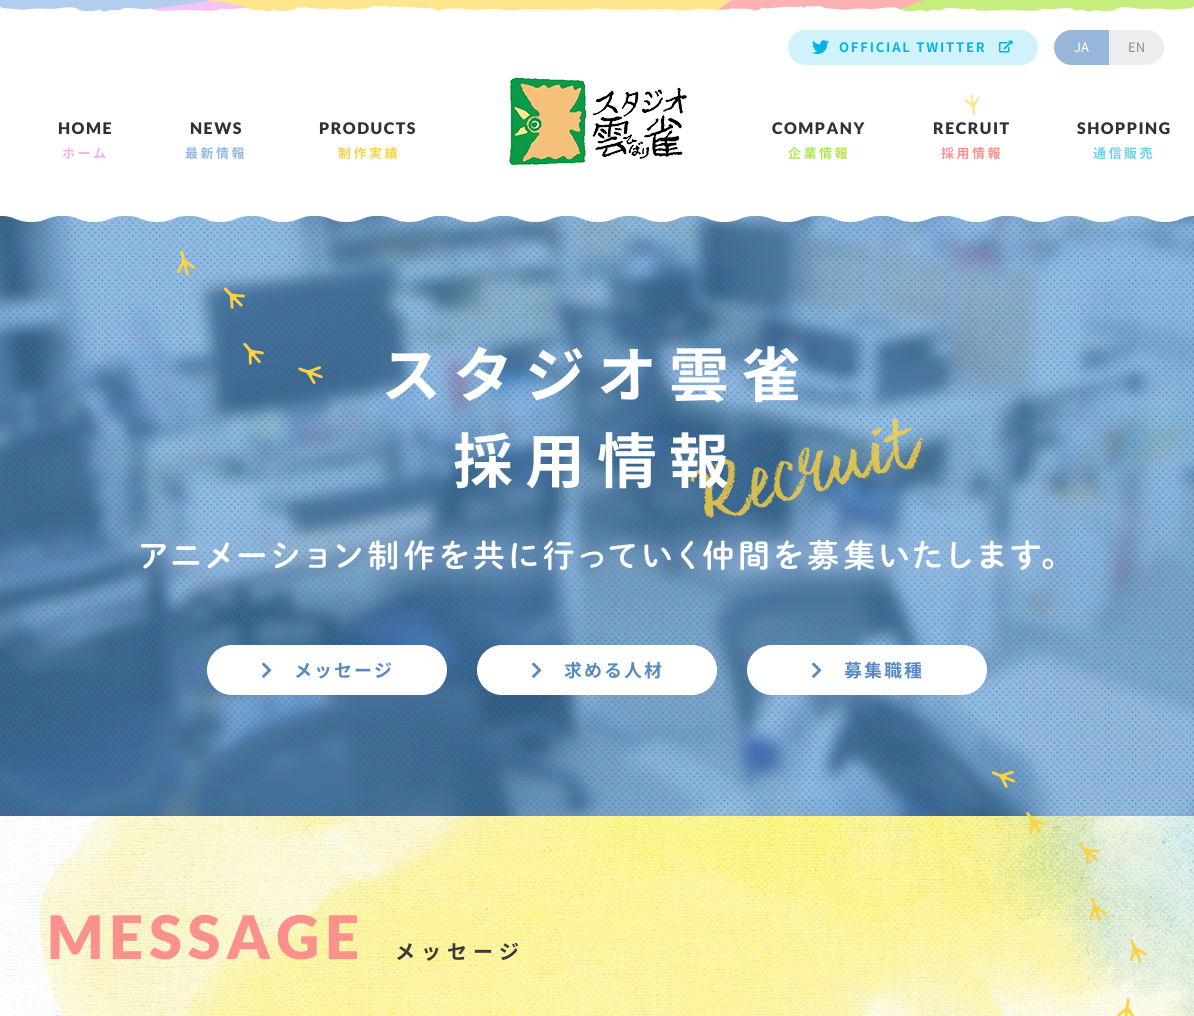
import math
import cairo

surface = cairo.ImageSurface(cairo.FORMAT_RGB24, 1194, 1016)
c = cairo.Context(surface)
options = cairo.FontOptions()
options.set_hint_metrics(cairo.HINT_METRICS_OFF)
options.set_hint_style(cairo.HINT_STYLE_NONE)
c.set_font_options(options)
c.set_miter_limit(4)
def C(code):
 c.set_source_rgb(*(v / 255 for v in bytes.fromhex(code[-6:])))
def F(family, size, italic, bold):
 c.select_font_face(family, cairo.FONT_SLANT_ITALIC if italic else cairo.FONT_SLANT_NORMAL, cairo.FONT_WEIGHT_BOLD if bold else cairo.FONT_WEIGHT_NORMAL)
 c.set_font_size(size)
def T(x, y, s):
 c.move_to(x, y)
 c.show_text(s)
def L(x, y, s, letter, word):
 c.move_to(x, y)
 for ch in s:
  c.show_text(ch)
  c.rel_move_to(letter + word * (ch == ' '), 0)
def Q(x, y, w, h, r):
 c.new_sub_path()
 for i, (u, v) in enumerate([(x + w - r, y + h - r), (x + r, y + h - r), (x + r, y + r), (x + w - r, y + r)]):
  c.arc(u, v, r, i * math.pi / 2, (i + 1) * math.pi / 2)
 c.close_path()
def I(path, x, y, w, h):
 c.save()
 c.set_source_surface(cairo.ImageSurface.create_from_png(path), x, y)
 c.rectangle(x, y, w, h)
 c.fill()
 c.restore()
C('ffffff')
c.paint()
I('1.png',0,0,1194,12)
C('d0f2fb')
Q(788,30,250,35,17.5)
c.fill()
I('2.png',812,40,17,14)
F('Noto Sans JP',13,0,1)
C('01b4e5')
L(839,52,'OFFICIAL TWITTER',1.8,0)
I('3.png',999,40,14,13)
C('98b6da')
c.new_path()
c.move_to(1071.5,30)
c.line_to(1109,30)
c.line_to(1109,65)
c.line_to(1071.5,65)
c.curve_to(1062,65,1054,57,1054,47.5)
c.curve_to(1054,38,1062,30,1071.5,30)
c.close_path()
c.fill()
F('Noto Sans JP',13,0,0)
C('ffffff')
T(1074,52,'JA')
C('ebedee')
c.new_path()
c.move_to(1109,30)
c.line_to(1146.5,30)
c.curve_to(1156,30,1164,38,1164,47.5)
c.curve_to(1164,57,1156,65,1146.5,65)
c.line_to(1109,65)
c.close_path()
c.fill()
C('8f8f8f')
T(1128,52,'EN')
F('Lato Black',16,0,0)
C('313131')
L(58,134,'HOME',1.5,0)
F('Noto Sans JP',13,0,1)
C('efafef')
L(62,158,'ホーム',2.5,0)
F('Lato Black',16,0,0)
C('313131')
L(190,134,'NEWS',1.5,0)
F('Noto Sans JP',13,0,1)
C('96b9e3')
L(185,158,'最新情報',2.5,0)
F('Lato Black',16,0,0)
C('313131')
L(319,134,'PRODUCTS',1.5,0)
F('Noto Sans JP',13,0,1)
C('fbd242')
L(338,158,'制作実績',2.5,0)
F('Lato Black',16,0,0)
C('313131')
L(772,134,'COMPANY',1.5,0)
F('Noto Sans JP',13,0,1)
C('b2e74d')
L(788,158,'企業情報',2.5,0)
I('4.png',964,94,16,21)
F('Lato Black',16,0,0)
C('313131')
L(933,134,'RECRUIT',1.5,0)
F('Noto Sans JP',13,0,1)
C('fb908d')
L(941,158,'採用情報',2.5,0)
F('Lato Black',16,0,0)
C('313131')
L(1077,134,'SHOPPING',1.5,0)
F('Noto Sans JP',13,0,1)
C('6bd3e8')
L(1093,158,'通信販売',2.5,0)
I('5.png',509,77,178,89)
I('6.png',0,216,1194,600)
I('7.png',4,216,1189,6)
I('10.png',122,512,942,85)
I('9.png',690,418,233,100)
I('12.png',0,816,1194,200)
F('Lato Black',60,0,0)
C('fb908d')
L(47,959,'MESSAGE',6,0)
F('Noto Sans JP',20,0,1)
C('3a3a3a')
L(395,959,'メッセージ',6,0)
I('8.png',177,250,970,766)
F('Noto Sans JP',60,0,1)
C('ffffff')
L(381,397,'スタジオ雲雀',12,0)
L(453,483,'採用情報',12,0)
Q(208,646,238,48,24)
c.fill_preserve()
c.stroke()
I('11.png',262,662,10,16)
F('Noto Sans JP',18,0,1)
C('5789c5')
L(294,677,'メッセージ',2,0)
C('ffffff')
Q(478,646,238,48,24)
c.fill_preserve()
c.stroke()
I('11.png',532,662,10,16)
C('5789c5')
L(564,677,'求める人材',2,0)
C('ffffff')
Q(748,646,238,48,24)
c.fill_preserve()
c.stroke()
I('11.png',812,662,10,16)
C('5789c5')
L(844,677,'募集職種',2,0)
surface.write_to_png('o.png')
